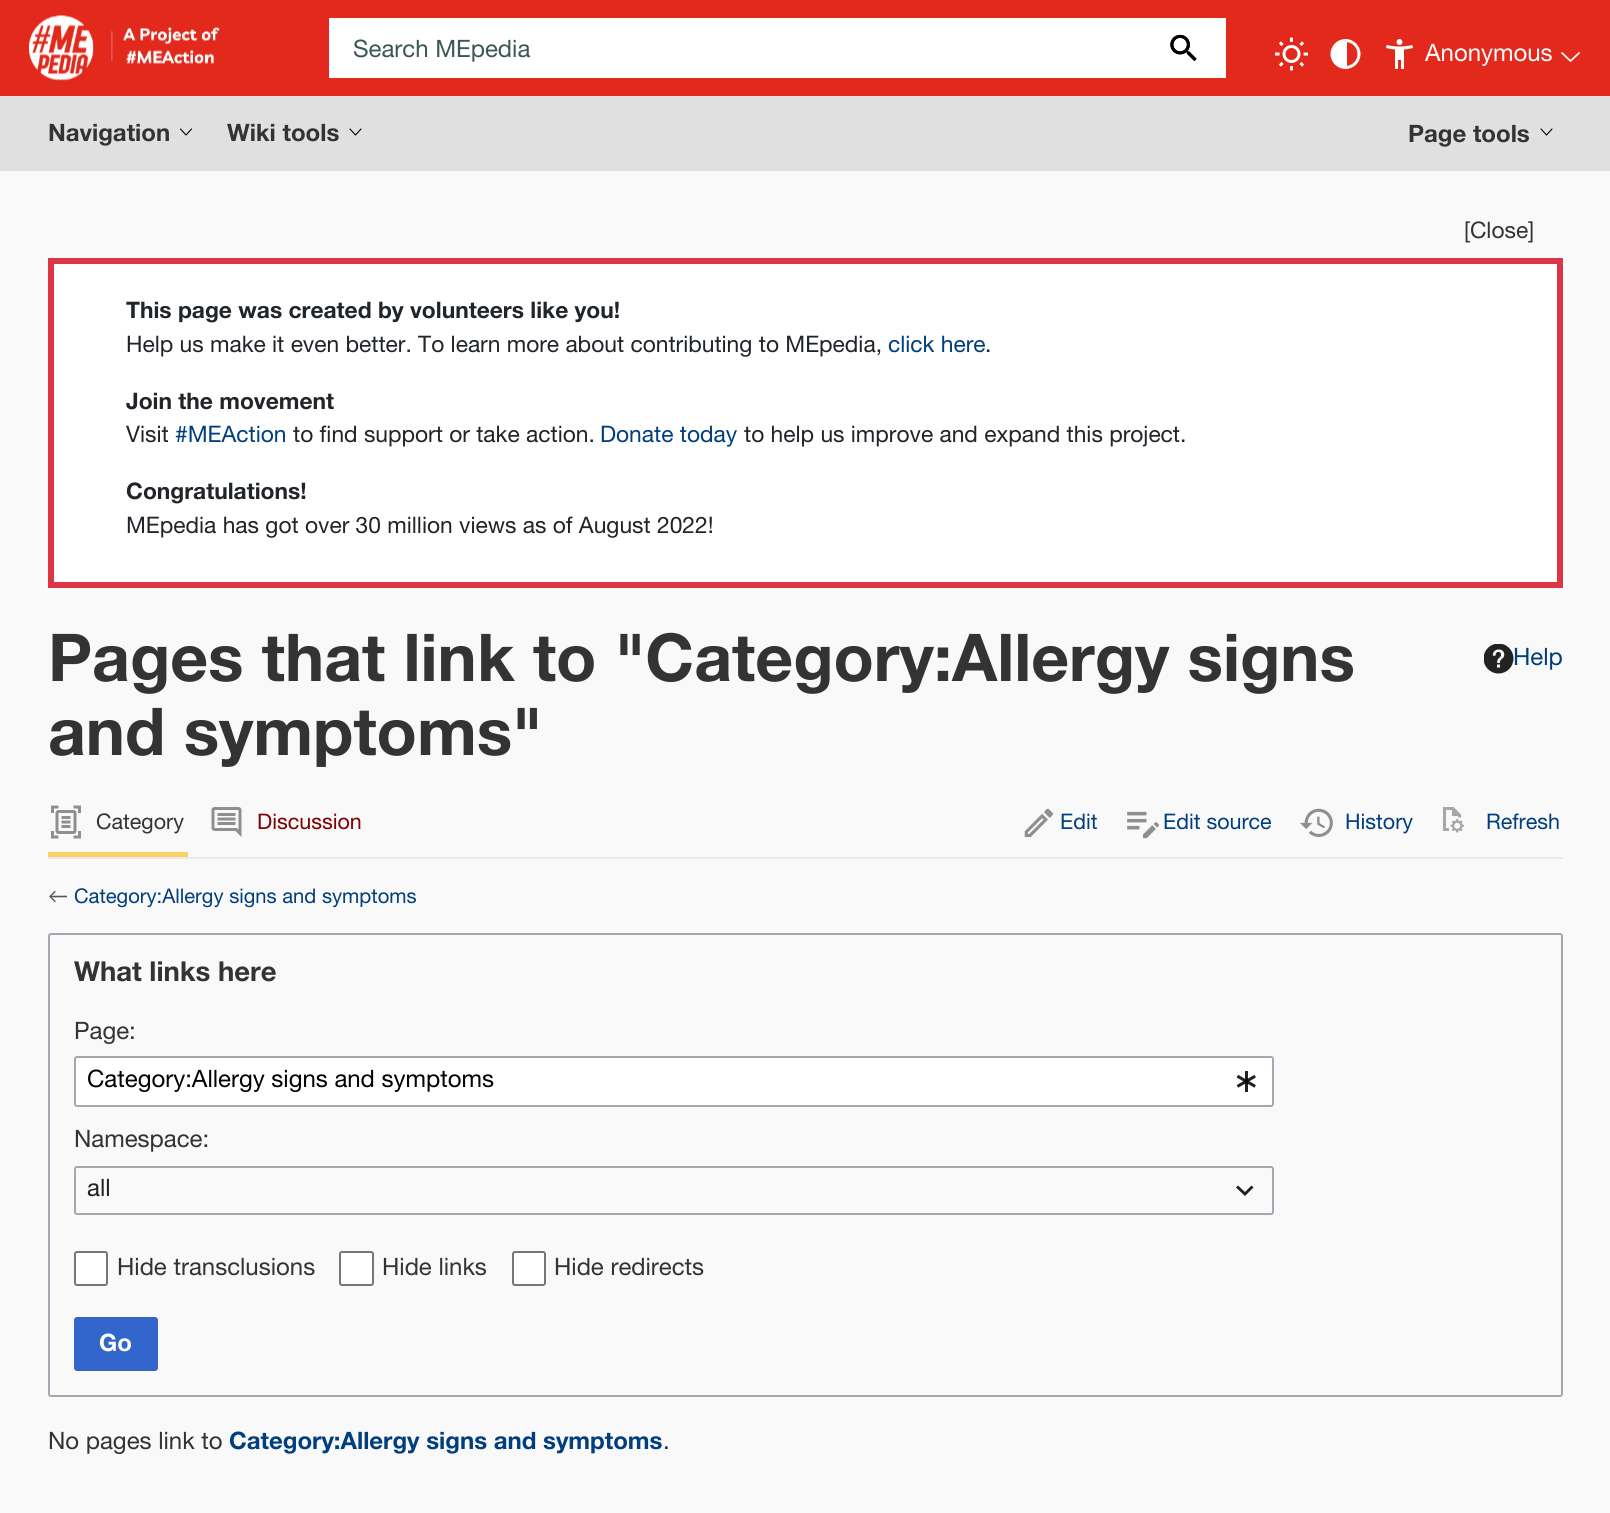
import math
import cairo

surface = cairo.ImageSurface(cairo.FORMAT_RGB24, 1610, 1513)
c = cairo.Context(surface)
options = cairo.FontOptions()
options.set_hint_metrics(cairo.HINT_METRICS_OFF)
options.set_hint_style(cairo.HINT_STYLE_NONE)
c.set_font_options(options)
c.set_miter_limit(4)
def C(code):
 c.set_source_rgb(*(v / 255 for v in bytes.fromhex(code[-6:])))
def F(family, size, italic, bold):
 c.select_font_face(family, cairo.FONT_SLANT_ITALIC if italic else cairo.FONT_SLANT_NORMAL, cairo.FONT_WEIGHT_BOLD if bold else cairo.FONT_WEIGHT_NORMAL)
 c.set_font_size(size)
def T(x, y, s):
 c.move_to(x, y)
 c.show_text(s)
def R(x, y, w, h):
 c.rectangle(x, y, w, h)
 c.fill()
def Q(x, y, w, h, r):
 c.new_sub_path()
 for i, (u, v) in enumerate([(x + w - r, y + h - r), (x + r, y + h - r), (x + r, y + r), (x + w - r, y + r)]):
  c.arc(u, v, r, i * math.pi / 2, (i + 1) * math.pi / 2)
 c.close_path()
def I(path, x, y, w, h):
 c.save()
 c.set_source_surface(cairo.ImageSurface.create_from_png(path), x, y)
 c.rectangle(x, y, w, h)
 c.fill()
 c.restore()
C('e0e0e0')
c.paint()
C('e3291c')
R(0,0,1610,96)
I('1.png',28,15,66,66)
I('2.png',111,27,109,37)
C('ffffff')
R(329,18,897,60)
I('3.png',1170,34,27,27)
F('Helvetica Neue',24,0,0)
C('3b5857')
T(353,57,'Search MEpedia')
I('4.png',1170,34,27,27)
I('5.png',1275,37,33,34)
I('6.png',1330,39,31,30)
I('7.png',1386,39,27,30)
C('ffffff')
T(1425,61,'Anonymous')
c.new_path()
c.move_to(1579,53)
c.line_to(1570.5,61)
c.line_to(1562,53)
c.set_line_width(1.7)
c.set_line_cap(cairo.LINE_CAP_ROUND)
c.set_line_join(cairo.LINE_JOIN_ROUND)
c.stroke()
F('Helvetica Neue',24,0,1)
C('333333')
T(48,141,'Navigation')
c.new_path()
c.move_to(191.5,129)
c.line_to(186,135)
c.line_to(180.5,129)
C('000000')
c.set_line_width(1.1)
c.stroke()
C('333333')
T(227,141,'Wiki tools')
c.new_path()
c.move_to(361,129)
c.line_to(355.5,135)
c.line_to(350,129)
C('000000')
c.stroke()
C('333333')
T(1408,142,'Page tools')
c.new_path()
c.move_to(1552,129)
c.line_to(1546.5,135)
c.line_to(1541,129)
C('000000')
c.stroke()
C('f9f9f9')
R(0,171,1610,1342)
F('Helvetica Neue',22.8,0,0)
C('333333')
T(1464,238,'[Close]')
C('ffffff')
c.rectangle(51,261,1509,324)
c.fill_preserve()
C('dc3545')
c.set_line_width(6)
c.set_line_cap(cairo.LINE_CAP_BUTT)
c.set_line_join(cairo.LINE_JOIN_MITER)
c.stroke()
F('Helvetica Neue',22.8,0,1)
C('212529')
T(126,318,'This page was created by volunteers like you!')
F('Helvetica Neue',22.8,0,0)
T(126,352,'Help us make it even better. To learn more about contributing to MEpedia,')
C('003e7d')
T(888,352,'click here')
C('212529')
T(985,352,'.')
F('Helvetica Neue',22.8,0,1)
T(126,409,'Join the movement')
F('Helvetica Neue',22.8,0,0)
T(126,442,'Visit')
C('003e7d')
T(175,442,'#MEAction')
C('212529')
T(293,442,'to find support or take action.')
C('003e7d')
T(600,442,'Donate today')
C('212529')
T(744,442,'to help us improve and expand this project.')
F('Helvetica Neue',22.8,0,1)
T(126,499,'Congratulations!')
F('Helvetica Neue',22.8,0,0)
T(126,533,'MEpedia has got over 30 million views as of August 2022!')
F('Helvetica Neue',66,0,1)
C('333333')
T(48,681,'Pages that link to "Category:Allergy signs')
T(48,755,'and symptoms"')
I('8.png',1484,644,30,30)
F('Helvetica Neue',24,0,0)
C('003e7d')
T(1513,665,'Help')
C('e7e9ed')
R(48,857,1515,2)
C('fcd264')
R(48,852,140,5)
I('9.png',51,805,30,34)
F('Helvetica Neue',21.5,0,0)
C('333333')
T(96,829,'Category')
I('10.png',211,807,31,30)
C('800000')
T(257,829,'Discussion')
I('11.png',1024,808,29,30)
C('003e7d')
T(1060,829,'Edit')
I('12.png',1127,811,32,28)
T(1163,829,'Edit source')
I('13.png',1300,808,33,29)
T(1345,829,'History')
I('14.png',1443,807,21,26)
T(1486,829,'Refresh')
F('Lato',20.2,0,0)
C('54595d')
T(48,903,'←')
F('Helvetica Neue',20.2,0,0)
C('003e7d')
T(74,903,'Category:Allergy signs and symptoms')
Q(49,934,1513,462,2)
C('a2a9b1')
c.set_line_width(2)
c.stroke()
F('Helvetica Neue',27.5,0,1)
C('333333')
T(74,981,'What links here')
F('Helvetica Neue',24,0,0)
T(74,1039,'Page:')
C('ffffff')
Q(75,1057,1198,49,2)
c.fill_preserve()
C('a2a9b1')
c.stroke()
C('000000')
T(87,1087,'Category:Allergy signs and symptoms')
I('15.png',1236,1071,20,21)
C('333333')
T(74,1147,'Namespace:')
Q(75,1167,1198,47,2)
C('a2a9b1')
c.stroke()
C('202122')
T(87,1196,'all')
C('202020')
c.new_path()
c.move_to(1251.5,1185.5)
c.line_to(1245,1192)
c.line_to(1238,1185.5)
c.line_to(1236,1187.5)
c.line_to(1245,1196)
c.line_to(1253.5,1187.5)
c.close_path()
c.fill()
C('ffffff')
Q(75,1252,32,33,2)
c.fill_preserve()
C('72777d')
c.stroke()
C('333333')
T(117,1275,'Hide transclusions')
C('ffffff')
Q(340,1252,33,33,2)
c.fill_preserve()
C('72777d')
c.stroke()
C('333333')
T(382,1275,'Hide links')
C('ffffff')
Q(513,1252,32,33,2)
c.fill_preserve()
C('72777d')
c.stroke()
C('333333')
T(554,1275,'Hide redirects')
C('3366cc')
Q(75,1318,82,52,2)
c.fill_preserve()
c.stroke()
F('Helvetica Neue',24,0,1)
C('ffffff')
T(99,1351,'Go')
F('Helvetica Neue',24,0,0)
C('333333')
T(48,1449,'No pages link to')
F('Helvetica Neue',24,0,1)
C('003e7d')
T(229,1449,'Category:Allergy signs and symptoms')
F('Helvetica Neue',24,0,0)
C('333333')
T(663,1449,'.')
surface.write_to_png('o.png')
